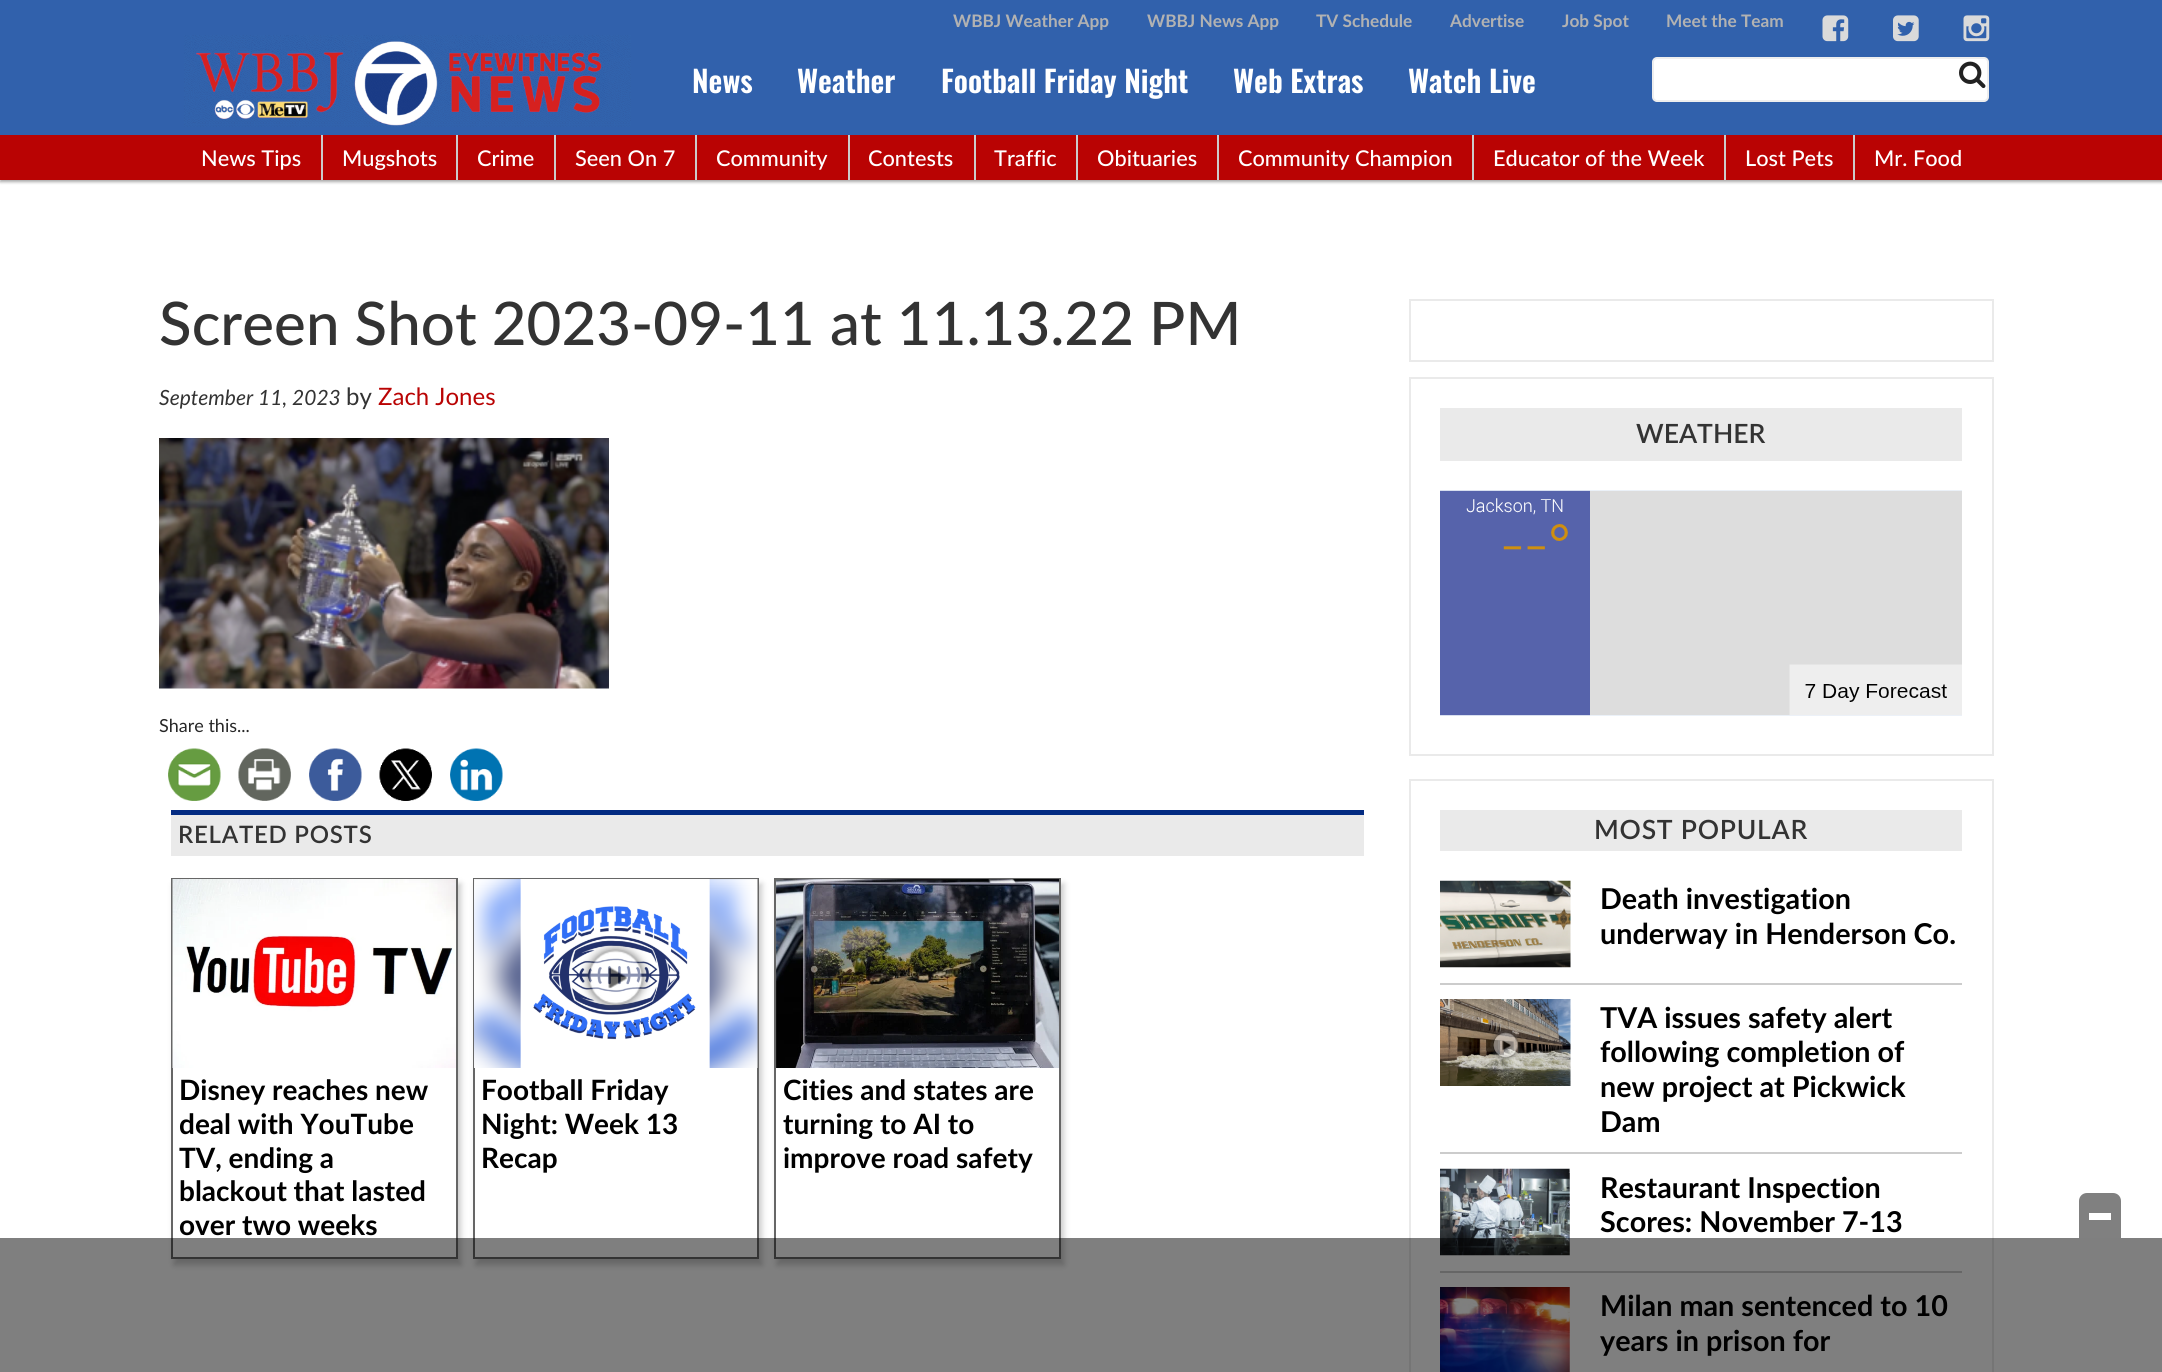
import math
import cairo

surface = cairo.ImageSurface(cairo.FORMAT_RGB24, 2162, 1372)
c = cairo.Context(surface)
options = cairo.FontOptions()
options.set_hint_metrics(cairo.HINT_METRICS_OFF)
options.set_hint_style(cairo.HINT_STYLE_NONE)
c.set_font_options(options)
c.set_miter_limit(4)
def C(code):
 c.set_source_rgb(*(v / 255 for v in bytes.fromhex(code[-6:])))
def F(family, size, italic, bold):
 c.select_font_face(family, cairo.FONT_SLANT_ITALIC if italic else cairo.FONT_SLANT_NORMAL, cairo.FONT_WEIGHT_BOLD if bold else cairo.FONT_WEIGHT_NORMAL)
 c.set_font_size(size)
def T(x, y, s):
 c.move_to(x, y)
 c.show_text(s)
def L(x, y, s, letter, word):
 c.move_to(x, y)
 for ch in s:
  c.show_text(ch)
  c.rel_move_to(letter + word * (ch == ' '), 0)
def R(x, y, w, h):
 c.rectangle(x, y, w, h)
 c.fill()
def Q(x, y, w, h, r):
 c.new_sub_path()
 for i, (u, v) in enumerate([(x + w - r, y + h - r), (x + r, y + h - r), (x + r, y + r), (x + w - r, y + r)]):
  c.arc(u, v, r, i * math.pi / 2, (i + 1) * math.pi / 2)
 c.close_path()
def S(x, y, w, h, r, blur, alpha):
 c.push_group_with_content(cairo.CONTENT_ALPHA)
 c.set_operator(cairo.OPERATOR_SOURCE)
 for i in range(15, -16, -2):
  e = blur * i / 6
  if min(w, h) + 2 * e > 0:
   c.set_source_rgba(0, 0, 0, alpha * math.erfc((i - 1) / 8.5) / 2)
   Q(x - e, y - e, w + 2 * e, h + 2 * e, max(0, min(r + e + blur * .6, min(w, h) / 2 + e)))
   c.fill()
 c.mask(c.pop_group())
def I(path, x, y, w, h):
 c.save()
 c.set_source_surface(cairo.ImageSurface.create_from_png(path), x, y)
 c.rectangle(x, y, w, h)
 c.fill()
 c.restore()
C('ffffff')
c.paint()
C('000000')
S(0,2,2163,180,0,1.5,.34)
C('3161ac')
R(0,0,2162,135)
C('b90303')
R(0,135,2162,45)
F('Lato',17.25,0,1)
C('b2b2b2')
T(953,27,'WBBJ Weather App')
T(1147,27,'WBBJ News App')
T(1316,27,'TV Schedule')
T(1450,27,'Advertise')
T(1562,27,'Job Spot')
T(1666,27,'Meet the Team')
I('1.png',1822,15,27,27)
I('2.png',1893,15,26,27)
I('3.png',1963,15,27,27)
I('4.png',184,35,447,92)
F('Oswald SemiBold',30,0,0)
C('ffffff')
T(692,93,'News')
T(797,93,'Weather')
T(941,93,'Football Friday Night')
T(1233,93,'Web Extras')
T(1408,93,'Watch Live')
Q(1653,58,335,43,4)
c.fill_preserve()
C('eeeeee')
c.stroke()
I('5.png',1959,61,27,28)
C('cccccc')
R(321,135,2,45)
F('Lato Medium',21.75,0,0)
C('ffffff')
T(201,166,'News Tips')
C('cccccc')
R(456,135,2,45)
C('ffffff')
T(342,166,'Mugshots')
C('cccccc')
R(554,135,2,45)
C('ffffff')
T(477,166,'Crime')
C('cccccc')
R(695,135,2,45)
C('ffffff')
T(575,166,'Seen On 7')
C('cccccc')
R(848,135,2,45)
C('ffffff')
T(716,166,'Community')
C('cccccc')
R(974,135,2,45)
C('ffffff')
T(868,166,'Contests')
C('cccccc')
R(1076,135,2,45)
C('ffffff')
T(994,166,'Traffic')
C('cccccc')
R(1217,135,2,45)
C('ffffff')
T(1097,166,'Obituaries')
C('cccccc')
R(1472,135,2,45)
C('ffffff')
T(1238,166,'Community Champion')
C('cccccc')
R(1724,135,2,45)
C('ffffff')
T(1493,166,'Educator of the Week')
C('cccccc')
R(1853,135,2,45)
C('ffffff')
T(1745,166,'Lost Pets')
T(1874,166,'Mr. Food')
F('Lato Medium',60,0,0)
C('333333')
T(159,345,'Screen Shot 2023-09-11 at 11.13.22 PM')
F('Lato',21,1,0)
T(159,405,'September 11, 2023')
F('Lato',24,0,0)
T(346,405,'by')
C('b90303')
T(378,405,'Zach Jones')
I('6.png',159,438,450,251)
F('Lato',18,0,0)
C('272727')
T(159,732,'Share this...')
I('7.png',168,748,53,53)
I('8.png',238,748,53,53)
I('9.png',309,748,53,53)
I('10.png',379,748,53,53)
I('11.png',450,748,53,53)
C('eaeaea')
R(171,815,1193,41)
C('032b82')
R(171,810,1193,5)
F('Lato SemiBold',24,0,0)
C('333333')
L(178,843,'RELATED POSTS',.75,0)
C('cccccc')
S(174,884,287,381,0,3,1)
C('ffffff')
R(173,1068,283,189)
c.rectangle(172,879,285,379)
C('666666')
c.stroke()
I('12.png',172,879,284,189)
F('Lato',28,0,1)
C('000000')
T(179,1100,'Disney reaches new')
T(179,1134,'deal with YouTube')
T(179,1168,'TV, ending a')
T(179,1201,'blackout that lasted')
T(179,1235,'over two weeks')
C('cccccc')
S(476,884,286,381,0,3,1)
C('ffffff')
c.rectangle(474,879,284,379)
c.fill_preserve()
C('666666')
c.stroke()
I('13.png',474,879,284,189)
I('14.png',520,879,190,189)
I('15.png',580,945,71,67)
C('000000')
T(481,1100,'Football Friday')
T(481,1134,'Night: Week 13')
T(481,1168,'Recap')
C('cccccc')
S(777,884,287,381,0,3,1)
C('ffffff')
c.rectangle(775,879,285,379)
c.fill_preserve()
C('666666')
c.stroke()
I('16.png',776,879,283,189)
C('000000')
T(783,1100,'Cities and states are')
T(783,1134,'turning to AI to')
T(783,1168,'improve road safety')
c.rectangle(1410,300,583,61)
C('eaeaea')
c.stroke()
c.rectangle(1410,378,583,377)
c.stroke()
R(1440,408,522,53)
F('Lato SemiBold',26.5,0,0)
C('333333')
T(1636,443,'WEATHER')
I('17.png',1440,490,522,226)
c.rectangle(1410,780,583,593)
C('eaeaea')
c.stroke()
R(1440,810,522,41)
C('333333')
L(1594,839,'MOST POPULAR',.75,0)
C('cccccc')
R(1440,983,522,2)
I('18.png',1440,880,131,88)
F('Lato',28.75,0,1)
C('000000')
T(1600,909,'Death investigation')
T(1600,944,'underway in Henderson Co.')
C('cccccc')
R(1440,1152,522,2)
I('19.png',1440,999,131,87)
I('20.png',1490,1030,31,31)
C('000000')
T(1600,1028,'TVA issues safety alert')
T(1600,1062,'following completion of')
T(1600,1097,'new project at Pickwick')
T(1600,1132,'Dam')
C('cccccc')
R(1440,1271,522,2)
I('21.png',1440,1168,130,88)
C('000000')
T(1600,1198,'Restaurant Inspection')
T(1600,1232,'Scores: November 7-13')
I('22.png',1440,1287,130,85)
T(1600,1316,'Milan man sentenced to 10')
T(1600,1351,'years in prison for')
c.set_source_rgba(0,0,0,0.5)
R(0,1238,2162,134)
C('808080')
c.new_path()
c.move_to(2087,1193)
c.line_to(2113,1193)
c.curve_to(2117.5,1193,2121,1196.5,2121,1201)
c.line_to(2121,1238)
c.line_to(2079,1238)
c.line_to(2079,1201)
c.curve_to(2079,1196.5,2082.5,1193,2087,1193)
c.close_path()
c.fill()
C('ffffff')
R(2089,1213,22,7)
surface.write_to_png('o.png')
